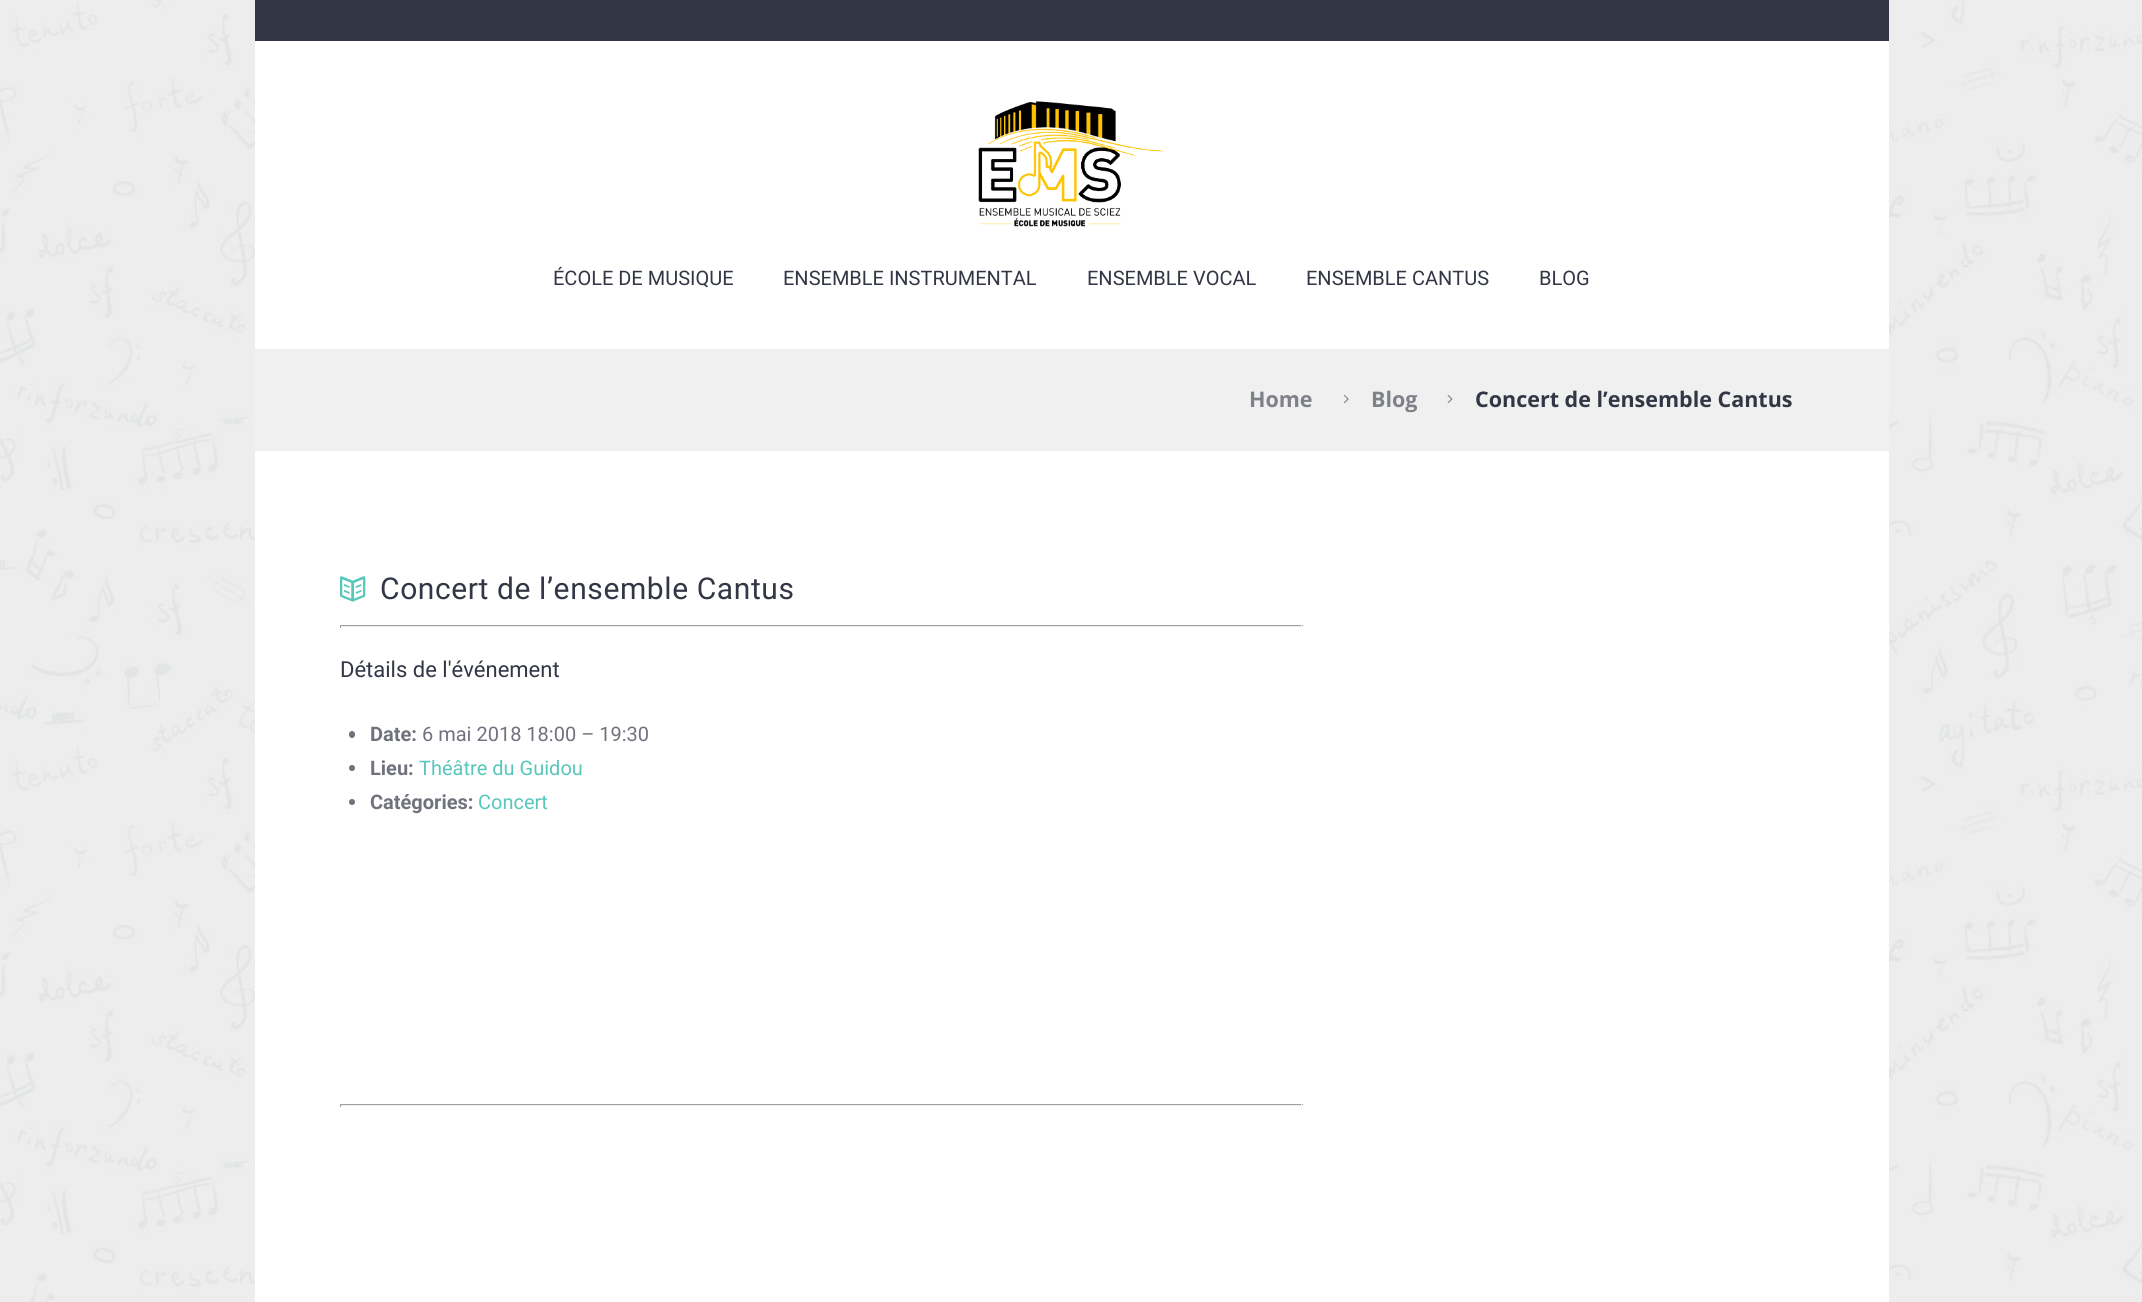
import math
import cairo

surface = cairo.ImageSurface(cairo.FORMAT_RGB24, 2142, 1302)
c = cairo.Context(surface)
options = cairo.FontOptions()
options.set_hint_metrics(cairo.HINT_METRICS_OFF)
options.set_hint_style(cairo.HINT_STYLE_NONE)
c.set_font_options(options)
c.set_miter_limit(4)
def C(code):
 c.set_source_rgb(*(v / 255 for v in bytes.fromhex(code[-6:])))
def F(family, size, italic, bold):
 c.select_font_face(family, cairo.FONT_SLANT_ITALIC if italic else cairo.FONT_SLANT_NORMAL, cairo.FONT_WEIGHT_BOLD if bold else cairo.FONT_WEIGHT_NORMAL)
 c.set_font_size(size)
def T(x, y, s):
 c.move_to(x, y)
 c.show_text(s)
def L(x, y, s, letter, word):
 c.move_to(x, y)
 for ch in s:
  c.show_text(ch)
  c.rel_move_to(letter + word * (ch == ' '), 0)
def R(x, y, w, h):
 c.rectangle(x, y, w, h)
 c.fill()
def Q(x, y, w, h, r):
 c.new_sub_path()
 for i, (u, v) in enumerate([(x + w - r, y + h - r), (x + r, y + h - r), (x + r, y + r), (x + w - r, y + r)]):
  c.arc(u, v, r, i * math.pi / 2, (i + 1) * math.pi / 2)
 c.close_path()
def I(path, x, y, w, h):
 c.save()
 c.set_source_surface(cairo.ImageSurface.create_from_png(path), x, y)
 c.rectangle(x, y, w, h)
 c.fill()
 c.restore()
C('ffffff')
c.paint()
I('1.png',0,0,2142,1302)
C('ffffff')
R(255,41,1634,1261)
C('333745')
R(255,0,1634,41)
I('2.png',978,101,186,126)
F('Roboto',20,0,0)
T(553,285,'ÉCOLE DE MUSIQUE')
T(783,285,'ENSEMBLE INSTRUMENTAL')
T(1087,285,'ENSEMBLE VOCAL')
T(1306,285,'ENSEMBLE CANTUS')
T(1539,285,'BLOG')
C('f0f0f0')
R(255,350,1634,101)
C('eeeeee')
R(255,349,1634,1)
F('Open Sans',21.5,0,1)
C('7f8189')
T(1249,407,'Home')
I('3.png',1343,394,6,10)
T(1371,407,'Blog')
I('4.png',1447,394,6,10)
C('333745')
T(1475,407,'Concert de l’ensemble Cantus')
I('5.png',340,576,26,26)
F('Roboto',30,0,0)
L(380,599,'Concert de l’ensemble Cantus',.6,0)
C('9f9f9f')
R(340,625,963,1)
C('eeeeee')
R(1301,625,1,3)
R(340,626,963,1)
C('9f9f9f')
R(340,625,1,3)
F('Roboto',22,0,0)
C('333745')
T(340,677,'Détails de l\'événement')
C('70737d')
Q(349,731,6,7,3)
c.fill()
F('Roboto',20,0,1)
T(370,741,'Date:')
F('Roboto',20,0,0)
T(422,741,'6 mai 2018 18:00 – 19:30')
c.new_path()
c.arc(352,768,3,0,2 * math.pi)
c.fill()
F('Roboto',20,0,1)
T(370,775,'Lieu:')
F('Roboto',20,0,0)
C('59c6bc')
T(419,775,'Théâtre du Guidou')
C('70737d')
c.new_path()
c.arc(352,802,3,0,2 * math.pi)
c.fill()
F('Roboto',20,0,1)
T(370,809,'Catégories:')
F('Roboto',20,0,0)
C('59c6bc')
T(478,809,'Concert')
C('9f9f9f')
R(340,1104,963,1)
C('eeeeee')
R(1301,1104,1,3)
R(340,1105,963,1)
C('9f9f9f')
R(340,1104,1,3)
surface.write_to_png('o.png')
